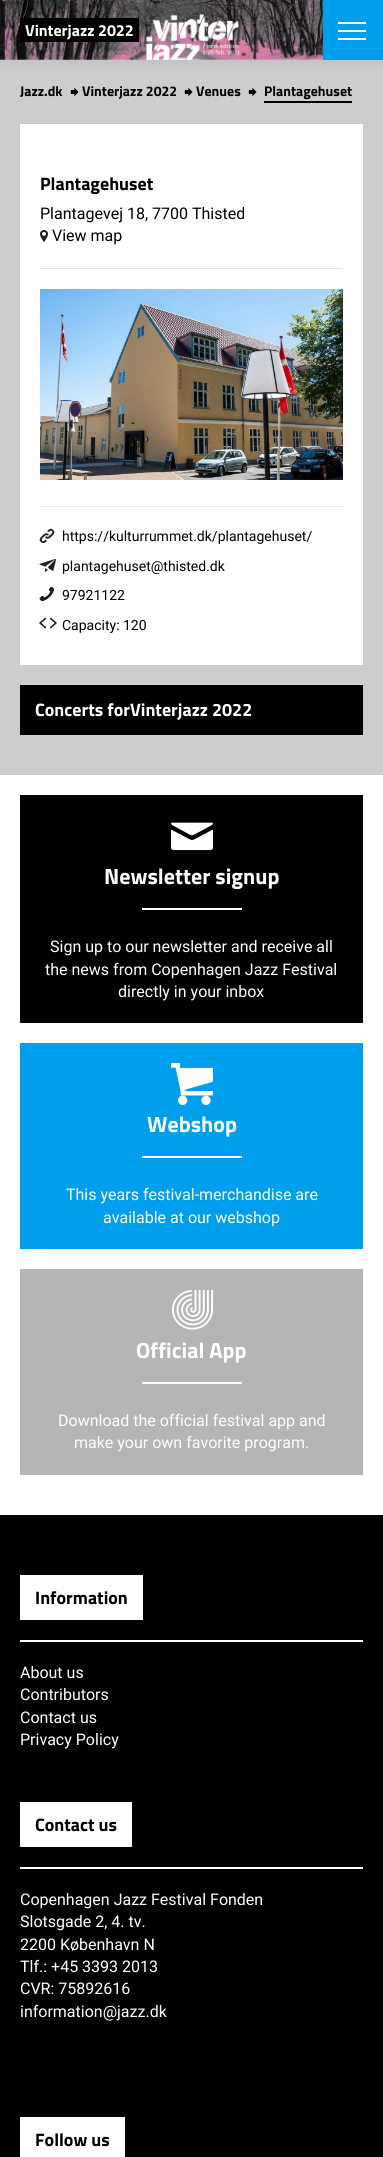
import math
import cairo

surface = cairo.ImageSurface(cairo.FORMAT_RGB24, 383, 2157)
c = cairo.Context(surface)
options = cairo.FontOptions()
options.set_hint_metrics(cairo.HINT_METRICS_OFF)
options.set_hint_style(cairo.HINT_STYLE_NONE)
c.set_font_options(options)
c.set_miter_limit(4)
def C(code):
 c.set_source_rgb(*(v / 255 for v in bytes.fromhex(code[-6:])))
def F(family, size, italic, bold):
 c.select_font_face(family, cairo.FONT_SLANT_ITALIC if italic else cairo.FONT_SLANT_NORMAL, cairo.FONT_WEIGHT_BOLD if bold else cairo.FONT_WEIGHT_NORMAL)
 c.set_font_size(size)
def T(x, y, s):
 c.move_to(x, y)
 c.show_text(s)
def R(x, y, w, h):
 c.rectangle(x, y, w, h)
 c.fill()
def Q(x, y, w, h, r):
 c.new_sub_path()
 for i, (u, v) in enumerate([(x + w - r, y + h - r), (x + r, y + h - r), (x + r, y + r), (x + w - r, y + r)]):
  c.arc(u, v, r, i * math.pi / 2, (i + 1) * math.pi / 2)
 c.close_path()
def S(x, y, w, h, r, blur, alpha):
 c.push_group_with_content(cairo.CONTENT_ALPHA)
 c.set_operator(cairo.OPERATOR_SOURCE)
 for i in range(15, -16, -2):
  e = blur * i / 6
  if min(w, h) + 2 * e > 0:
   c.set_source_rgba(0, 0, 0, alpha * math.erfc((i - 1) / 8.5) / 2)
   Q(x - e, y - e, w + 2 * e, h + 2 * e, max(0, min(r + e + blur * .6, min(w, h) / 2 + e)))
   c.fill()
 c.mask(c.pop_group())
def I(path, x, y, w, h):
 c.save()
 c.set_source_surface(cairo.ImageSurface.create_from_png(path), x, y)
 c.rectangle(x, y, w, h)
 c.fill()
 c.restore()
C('ffffff')
c.paint()
C('cdcdcd')
R(0,60,383,625)
C('000000')
S(0,0,383,60,0,7.5,.1)
I('1.png',0,0,323,60)
C('000000')
R(20,18,119,24)
F('Titillium Web',16,0,1)
C('ffffff')
T(25,36,'Vinterjazz 2022')
C('009fee')
R(323,0,60,60)
C('ffffff')
R(338,22,28,2)
R(338,30,28,2)
R(338,38,28,2)
F('Titillium Web',14,0,1)
C('000000')
T(20,96,'Jazz.dk')
I('2.png',70,88,9,8)
T(82,96,'Vinterjazz 2022')
I('2.png',184,88,9,8)
T(196,96,'Venues')
I('2.png',248,88,9,8)
T(264,96,'Plantagehuset')
R(264,101,88,2)
C('ffffff')
R(20,124,343,541)
F('Titillium Web',18,0,1)
C('000000')
T(40,190,'Plantagehuset')
F('Roboto',16,0,0)
T(40,219,'Plantagevej 18, 7700 Thisted')
I('3.png',40,230,8,12)
T(52,241,'View map')
C('e4e4e4')
R(40,268,303,1)
I('4.png',40,289,303,191)
R(40,506,303,1)
I('5.png',39,528,16,15)
F('Roboto',14,0,0)
C('000000')
T(62,541,'https://kulturrummet.dk/plantagehuset/')
I('6.png',39,559,17,13)
T(62,571,'plantagehuset@thisted.dk')
I('7.png',39,587,15,14)
T(62,600,'97921122')
I('8.png',39,617,18,12)
T(62,630,'Capacity: 120')
C('cccccc')
R(0,685,383,90)
C('000000')
R(20,685,343,50)
F('Titillium Web',18,0,1)
C('ffffff')
T(35,716,'Concerts forVinterjazz 2022')
C('000000')
R(20,795,343,228)
I('9.png',171,822,42,29)
F('Titillium Web',22,0,1)
C('ffffff')
T(104,884,'Newsletter signup')
R(142,908,100,2)
F('Roboto',16,0,0)
T(50,952,'Sign up to our newsletter and receive all')
T(45,975,'the news from Copenhagen Jazz Festival')
T(118,997,'directly in your inbox')
C('009fee')
R(20,1043,343,206)
I('10.png',171,1063,42,42)
F('Titillium Web',22,0,1)
C('ffffff')
T(147,1132,'Webshop')
R(142,1156,100,2)
F('Roboto',16,0,0)
T(66,1200,'This years festival-merchandise are')
T(103,1223,'available at our webshop')
C('b5b5b5')
R(20,1269,343,206)
I('11.png',172,1290,41,40)
F('Titillium Web',22,0,1)
C('ffffff')
T(136,1358,'Official App')
R(142,1382,100,2)
F('Roboto',16,0,0)
T(58,1426,'Download the official festival app and')
T(74,1448,'make your own favorite program.')
C('000000')
R(0,1515,383,642)
C('ffffff')
R(20,1575,123,45)
F('Titillium Web',18,0,1)
C('000000')
T(35,1604,'Information')
C('ffffff')
R(20,1640,343,2)
F('Roboto',16,0,0)
T(20,1678,'About us')
T(20,1700,'Contributors')
T(20,1723,'Contact us')
T(20,1745,'Privacy Policy')
R(20,1802,112,45)
F('Titillium Web',18,0,1)
C('000000')
T(35,1831,'Contact us')
C('ffffff')
R(20,1867,343,2)
F('Roboto',16,0,0)
T(20,1905,'Copenhagen Jazz Festival Fonden')
T(20,1927,'Slotsgade 2, 4. tv.')
T(20,1950,'2200 København N')
T(20,1972,'Tlf.: +45 3393 2013')
T(20,1994,'CVR: 75892616')
T(20,2017,'information@jazz.dk')
R(20,2117,105,40)
F('Titillium Web',18,0,1)
C('000000')
T(35,2146,'Follow us')
surface.write_to_png('o.png')
